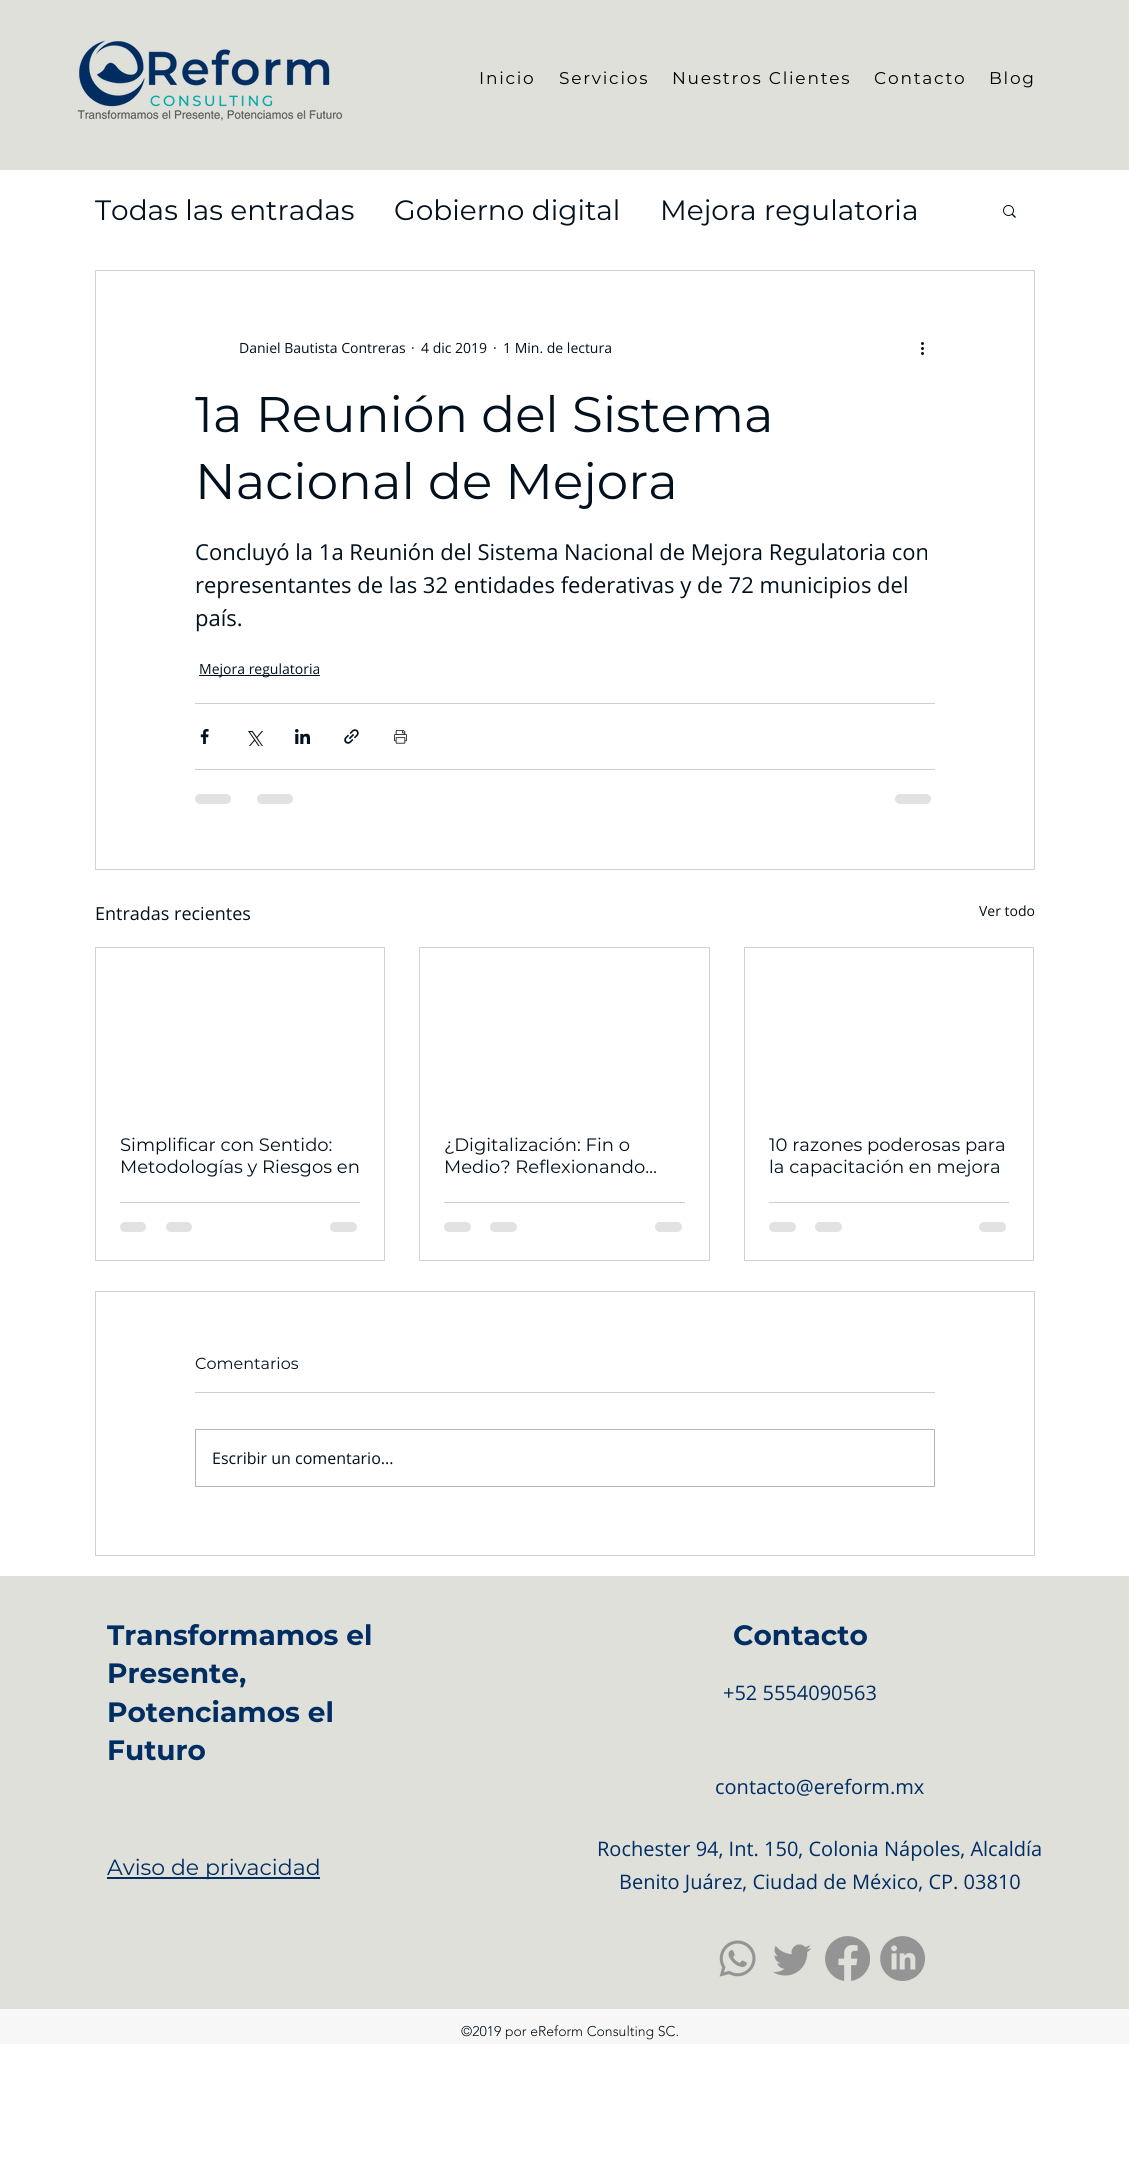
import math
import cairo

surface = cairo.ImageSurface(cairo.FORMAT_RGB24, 1129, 2173)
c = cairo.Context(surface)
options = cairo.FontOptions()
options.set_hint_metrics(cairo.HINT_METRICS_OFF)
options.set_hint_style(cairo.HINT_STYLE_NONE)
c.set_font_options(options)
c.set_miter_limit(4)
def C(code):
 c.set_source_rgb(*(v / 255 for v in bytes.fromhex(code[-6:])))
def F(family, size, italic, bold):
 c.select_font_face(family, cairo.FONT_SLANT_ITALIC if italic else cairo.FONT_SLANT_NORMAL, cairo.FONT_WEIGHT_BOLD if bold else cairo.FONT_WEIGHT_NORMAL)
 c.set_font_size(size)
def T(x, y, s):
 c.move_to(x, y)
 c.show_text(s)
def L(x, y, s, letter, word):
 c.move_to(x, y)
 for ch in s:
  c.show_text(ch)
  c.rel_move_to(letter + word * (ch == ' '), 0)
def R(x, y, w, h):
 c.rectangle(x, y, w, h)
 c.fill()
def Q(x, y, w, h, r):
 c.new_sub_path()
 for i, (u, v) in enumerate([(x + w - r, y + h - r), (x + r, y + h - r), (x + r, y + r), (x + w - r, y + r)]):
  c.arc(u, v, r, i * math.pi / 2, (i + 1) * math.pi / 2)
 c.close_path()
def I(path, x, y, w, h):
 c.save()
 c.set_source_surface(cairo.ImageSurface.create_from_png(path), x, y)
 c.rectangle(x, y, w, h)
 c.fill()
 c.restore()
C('ffffff')
c.paint()
C('e0e0db')
R(0,0,1129,170)
I('1.png',77,40,266,81)
F('Montserrat',17,0,0)
C('000000')
L(479,84,'Inicio',1.75,0)
L(559,84,'Servicios',1.75,0)
L(672,84,'Nuestros Clientes',1.75,0)
L(874,84,'Contacto',1.75,0)
L(989,84,'Blog',1.75,0)
F('Montserrat',28,0,0)
C('02111d')
T(95,220,'Todas las entradas')
T(394,220,'Gobierno digital')
T(660,220,'Mejora regulatoria')
I('2.png',1003,205,13,13)
c.rectangle(95.5,270.5,939,599)
C('d0d3d5')
c.set_line_width(1)
c.stroke()
F('Open Sans',14,0,0)
C('02111d')
T(239,353,'Daniel Bautista Contreras')
T(411,353,'·')
T(421,353,'4 dic 2019')
T(493,353,'·')
T(503,353,'1 Min. de lectura')
I('3.png',921,342,3,13)
F('Montserrat',50,0,0)
T(195,432,'1a Reunión del Sistema')
T(195,499,'Nacional de Mejora')
F('Open Sans',22,0,0)
T(195,560,'Concluyó la 1a Reunión del Sistema Nacional de Mejora Regulatoria con')
T(195,593,'representantes de las 32 entidades federativas y de 72 municipios del')
T(195,626,'país.')
R(199,675,121,1)
F('Open Sans',14,0,0)
T(199,674,'Mejora regulatoria')
C('cccfd2')
R(195,703,740,1)
I('4.png',200,729,9,15)
I('5.png',248,731,15,15)
I('6.png',295,729,15,15)
I('7.png',344,729,15,15)
I('8.png',394,730,13,14)
R(195,769,740,1)
C('e1e2e4')
Q(195,794,36,10,5)
c.fill()
Q(257,794,36,10,5)
c.fill()
Q(895,794,36,10,5)
c.fill()
F('Open Sans',18,0,0)
C('02111d')
T(95,920,'Entradas recientes')
F('Open Sans',14,0,0)
T(979,916,'Ver todo')
c.rectangle(95.5,947.5,289,313)
C('d0d3d5')
c.stroke()
F('Montserrat',18,0,0)
C('02111d')
T(120,1151,'Simplificar con Sentido:')
T(120,1173,'Metodologías y Riesgos en')
C('cccfd2')
R(120,1202,240,1)
C('e1e2e4')
Q(120,1222,26,10,5)
c.fill()
Q(166,1222,26,10,5)
c.fill()
Q(330,1222,27,10,5)
c.fill()
c.rectangle(419.5,947.5,290,313)
C('d0d3d5')
c.stroke()
C('02111d')
T(444,1151,'¿Digitalización: Fin o')
T(444,1173,'Medio? Reflexionando…')
C('cccfd2')
R(444,1202,241,1)
C('e1e2e4')
Q(444,1222,27,10,5)
c.fill()
Q(490,1222,27,10,5)
c.fill()
Q(655,1222,27,10,5)
c.fill()
c.rectangle(744.5,947.5,289,313)
C('d0d3d5')
c.stroke()
C('02111d')
T(769,1151,'10 razones poderosas para')
T(769,1173,'la capacitación en mejora')
C('cccfd2')
R(769,1202,240,1)
C('e1e2e4')
Q(769,1222,27,10,5)
c.fill()
Q(815,1222,27,10,5)
c.fill()
Q(979,1222,27,10,5)
c.fill()
c.rectangle(95.5,1291.5,939,264)
C('d0d3d5')
c.stroke()
F('Montserrat',16,0,0)
C('02111d')
T(195,1369,'Comentarios')
C('cccfd2')
R(195,1392,740,1)
c.rectangle(195.5,1429.5,739,57)
C('b3b8bb')
c.stroke()
F('Open Sans',16,0,0)
C('02111d')
T(212,1464,'Escribir un comentario...')
C('e0e0db')
R(0,1576,1129,433)
F('Montserrat',28,0,1)
C('002d62')
T(107,1645,'Transformamos el')
T(107,1683,'Presente,')
T(107,1722,'Potenciamos el')
T(107,1760,'Futuro')
T(733,1645,'Contacto')
F('Open Sans',20,0,0)
T(723,1700,'+52 5554090563')
T(715,1794,'contacto@ereform.mx')
R(107,1877,213,2)
F('Montserrat',22,0,0)
T(107,1875,'Aviso de privacidad')
F('Open Sans',20,0,0)
T(597,1856,'Rochester 94, Int. 150, Colonia Nápoles, Alcaldía')
T(619,1889,'Benito Juárez, Ciudad de México, CP. 03810')
I('9.png',719,1940,37,37)
I('10.png',773,1944,38,32)
I('11.png',825,1936,45,45)
I('12.png',880,1936,45,45)
C('f7f7f7')
R(0,2009,1129,35)
F('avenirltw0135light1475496 Light',14,0,0)
C('02111d')
T(461,2036,'©2019 por eReform Consulting SC.')
surface.write_to_png('o.png')
